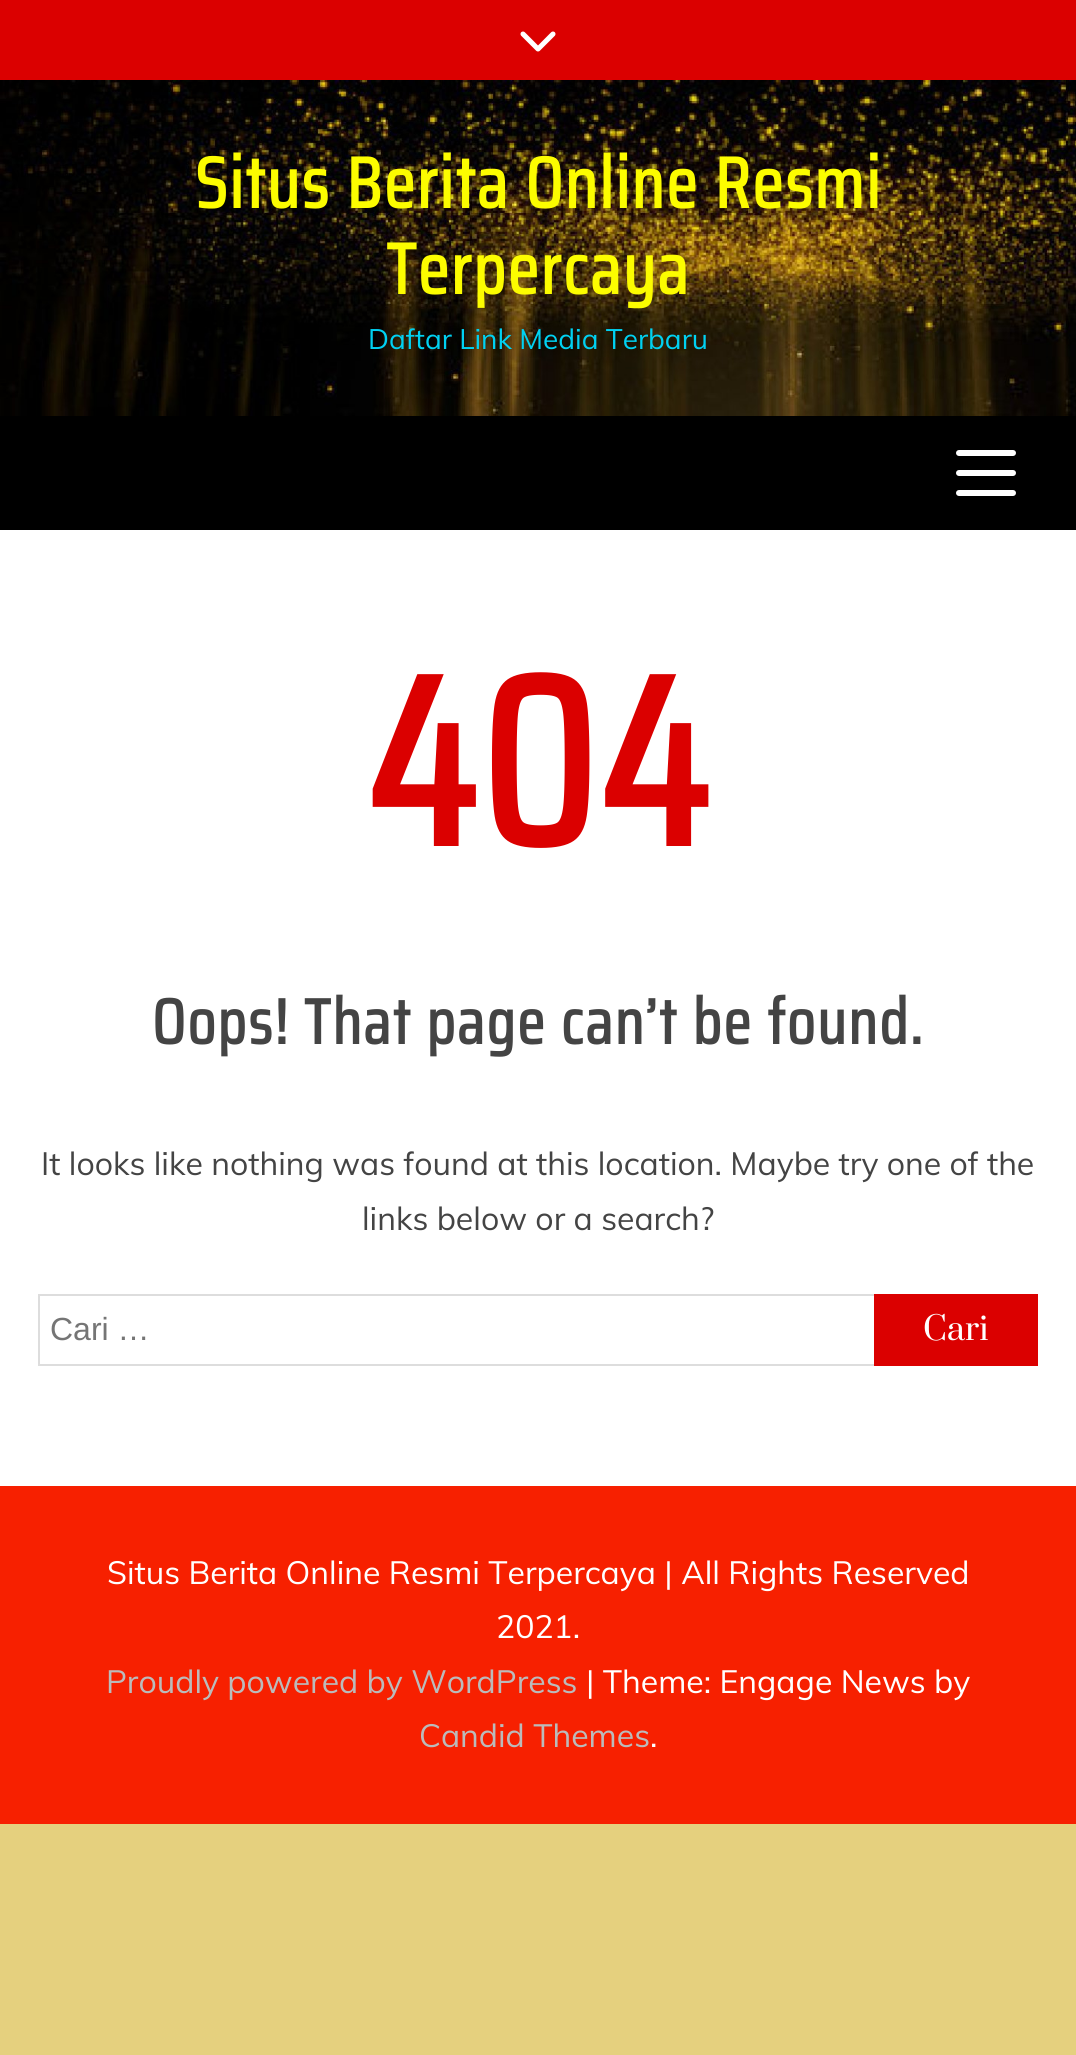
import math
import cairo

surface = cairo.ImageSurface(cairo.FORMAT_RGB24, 1076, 2055)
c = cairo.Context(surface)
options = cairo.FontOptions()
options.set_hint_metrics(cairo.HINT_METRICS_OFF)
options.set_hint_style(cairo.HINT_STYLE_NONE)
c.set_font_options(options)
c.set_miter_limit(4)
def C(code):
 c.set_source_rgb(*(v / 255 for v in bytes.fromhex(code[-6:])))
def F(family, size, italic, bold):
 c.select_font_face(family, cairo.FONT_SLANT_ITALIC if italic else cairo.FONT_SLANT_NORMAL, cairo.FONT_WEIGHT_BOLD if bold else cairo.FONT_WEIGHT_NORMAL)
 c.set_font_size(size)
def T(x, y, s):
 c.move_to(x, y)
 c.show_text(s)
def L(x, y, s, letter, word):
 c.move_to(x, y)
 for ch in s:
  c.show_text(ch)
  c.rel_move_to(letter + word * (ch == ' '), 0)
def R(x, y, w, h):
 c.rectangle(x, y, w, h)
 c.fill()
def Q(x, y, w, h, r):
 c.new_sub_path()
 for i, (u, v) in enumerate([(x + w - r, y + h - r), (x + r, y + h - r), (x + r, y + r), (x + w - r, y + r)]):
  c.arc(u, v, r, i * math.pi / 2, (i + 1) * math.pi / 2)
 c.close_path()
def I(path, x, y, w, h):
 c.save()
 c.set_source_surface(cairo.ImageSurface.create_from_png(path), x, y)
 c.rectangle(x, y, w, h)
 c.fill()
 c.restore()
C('e5d07e')
c.paint()
C('db0000')
R(0,0,1076,80)
I('1.png',520,31,36,21)
I('2.png',0,80,1076,336)
F('Saira Condensed',72,0,1)
C('fcfc00')
L(195,208,'Situs Berita Online Resmi',2,0)
L(386,294,'Terpercaya',2,0)
F('Muli',28,0,0)
C('00d1f2')
T(368,349,'Daftar Link Media Terbaru')
C('000000')
R(0,416,1076,114)
C('ffffff')
Q(956,450,60,6,3)
c.fill()
Q(956,470,60,6,3)
c.fill()
Q(956,490,60,6,3)
c.fill()
R(0,530,1076,956)
F('Saira Condensed',240,0,1)
C('db0000')
L(365,846,'404',2,0)
F('Saira Condensed',64,0,1)
C('444444')
L(152,1044,'Oops! That page can’t be found.',2,0)
F('Muli',32,0,0)
T(41,1175,'It looks like nothing was found at this location. Maybe try one of the')
T(362,1230,'links below or a search?')
c.rectangle(39,1295,998,70)
C('dddddd')
c.stroke()
F('Liberation Sans',32,0,0)
C('757575')
T(50,1340,'Cari …')
C('db0000')
R(874,1294,164,72)
F('Prata',32,0,0)
C('ffffff')
T(923,1340,'Cari')
C('f72000')
R(0,1486,1076,338)
F('Muli',32,0,0)
C('ffffff')
T(107,1584,'Situs Berita Online Resmi Terpercaya | All Rights Reserved')
T(496,1638,'2021.')
C('bbbbbb')
T(106,1693,'Proudly powered by WordPress')
C('ffffff')
T(586,1693,'| Theme: Engage News by')
C('bbbbbb')
T(419,1747,'Candid Themes')
C('ffffff')
T(650,1747,'.')
surface.write_to_png('o.png')
